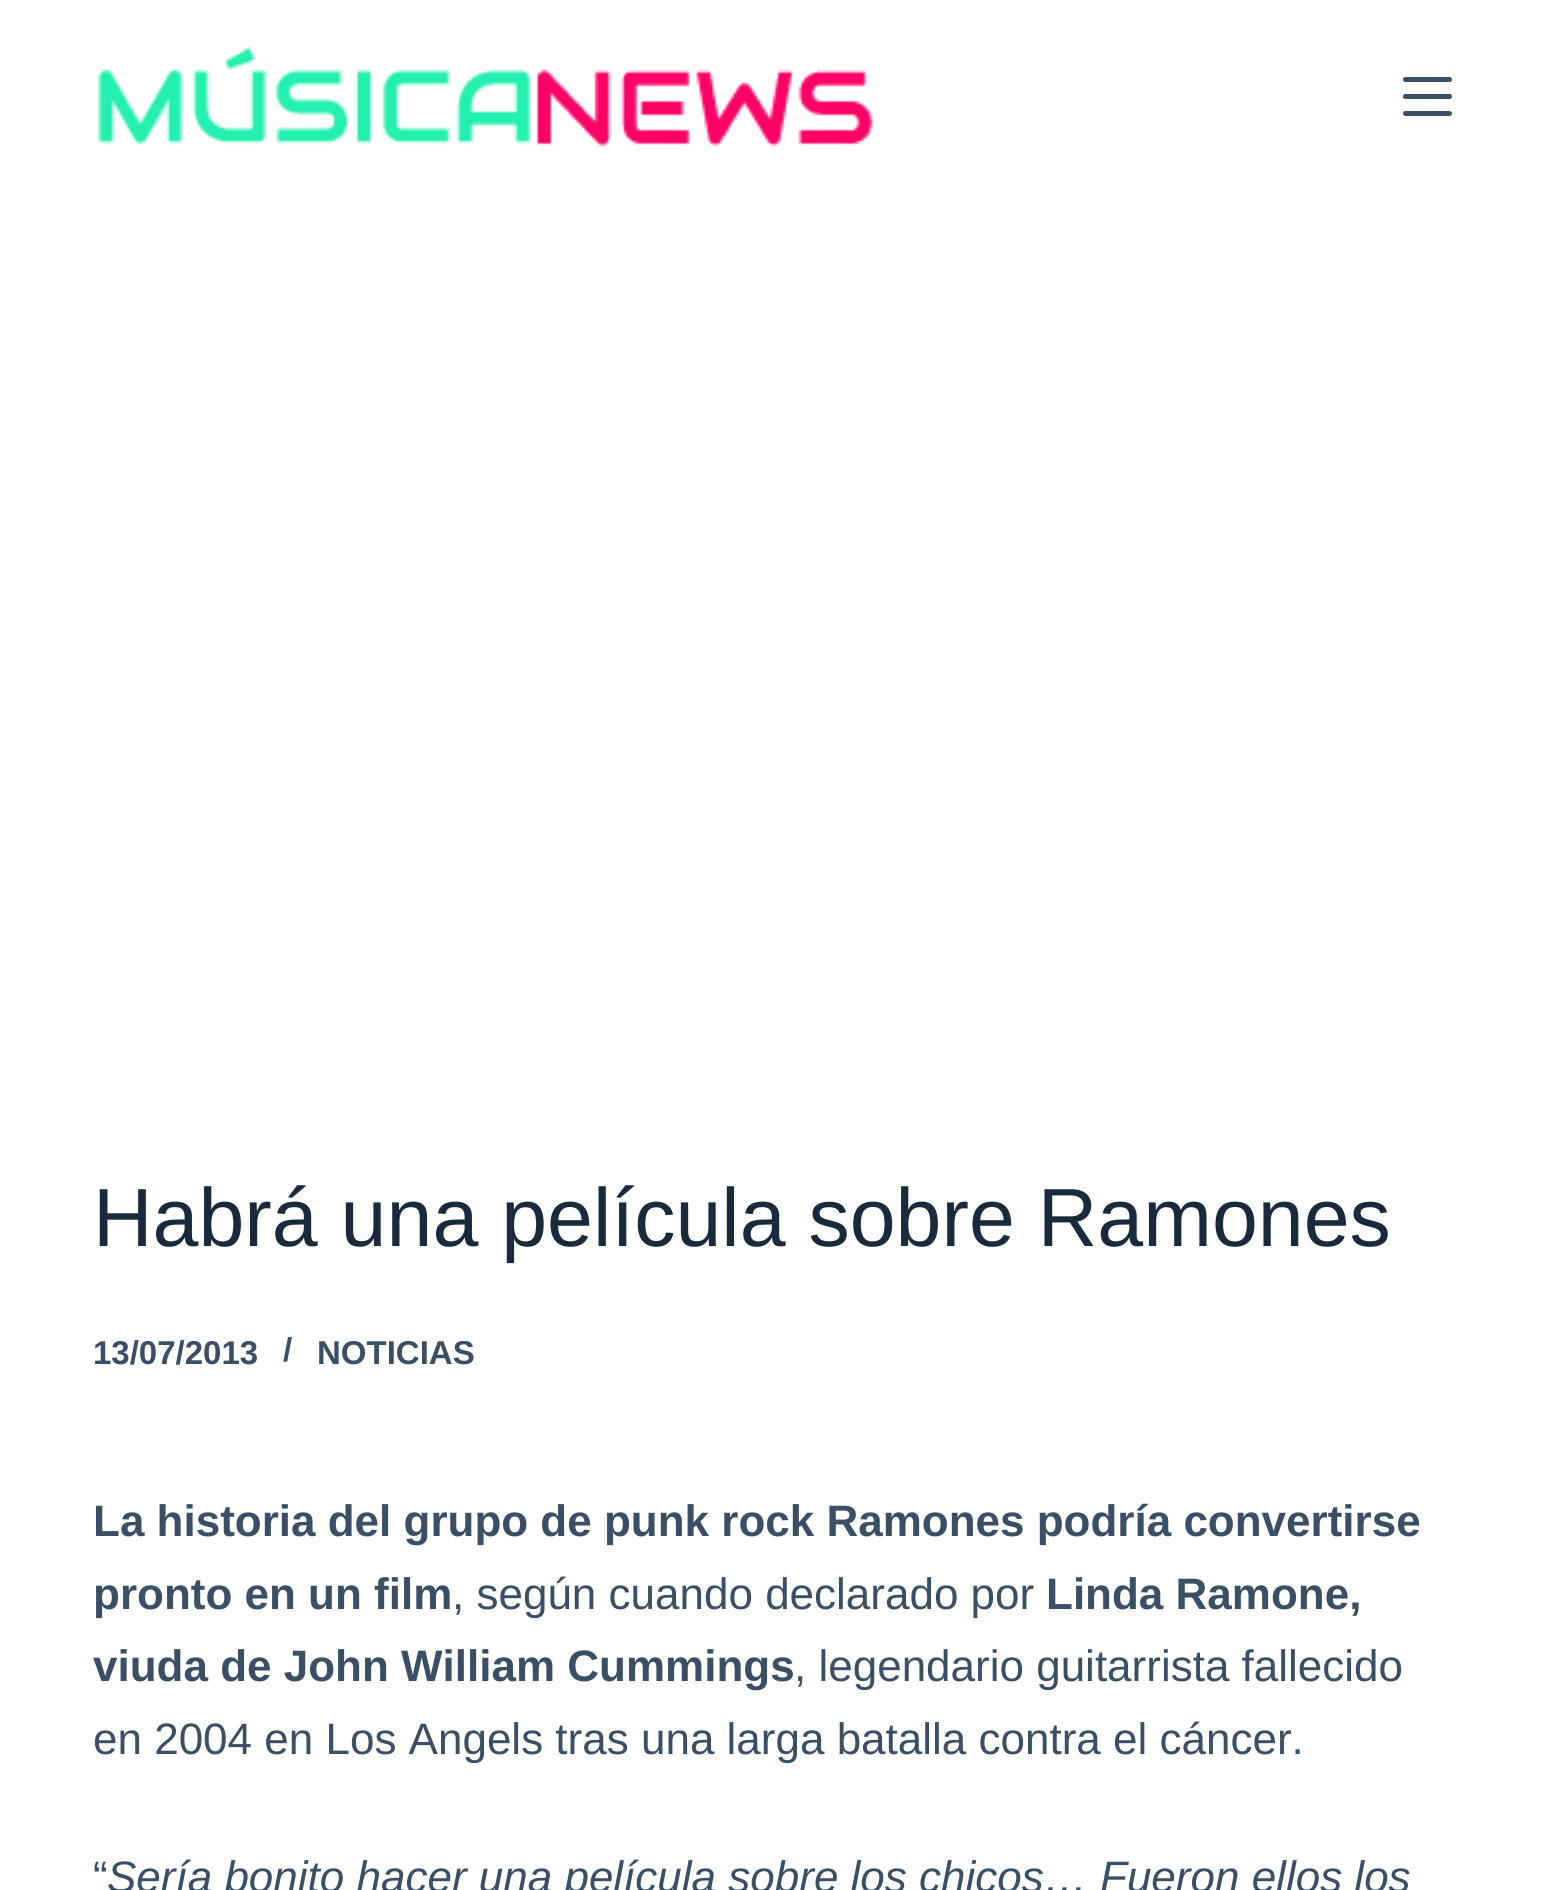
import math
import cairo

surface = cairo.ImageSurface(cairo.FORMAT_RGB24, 1544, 1890)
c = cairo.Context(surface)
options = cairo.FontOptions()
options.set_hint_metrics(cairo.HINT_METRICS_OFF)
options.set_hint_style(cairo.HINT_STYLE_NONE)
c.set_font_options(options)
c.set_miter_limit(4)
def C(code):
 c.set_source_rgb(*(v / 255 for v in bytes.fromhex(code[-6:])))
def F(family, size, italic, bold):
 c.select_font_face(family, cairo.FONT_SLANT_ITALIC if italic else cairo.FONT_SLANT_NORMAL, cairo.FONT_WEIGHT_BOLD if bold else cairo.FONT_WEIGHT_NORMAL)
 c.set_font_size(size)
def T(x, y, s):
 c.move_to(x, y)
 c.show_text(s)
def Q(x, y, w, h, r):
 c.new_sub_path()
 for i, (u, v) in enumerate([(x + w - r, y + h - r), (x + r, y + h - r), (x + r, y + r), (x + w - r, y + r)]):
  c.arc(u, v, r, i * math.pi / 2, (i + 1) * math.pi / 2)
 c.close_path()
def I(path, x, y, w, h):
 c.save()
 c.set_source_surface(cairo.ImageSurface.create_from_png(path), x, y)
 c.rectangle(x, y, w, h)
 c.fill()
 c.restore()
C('ffffff')
c.paint()
I('1.png',98,46,775,101)
C('3a4f66')
Q(1403,77,49,5,2.5)
c.fill()
Q(1403,94,49,5,2.5)
c.fill()
Q(1403,111,49,5,2.5)
c.fill()
F('Liberation Sans',82.5,0,0)
C('192a3d')
T(93,1246,'Habrá una película sobre Ramones')
F('Liberation Sans',33,0,1)
C('3a4f66')
T(93,1364,'13/07/2013')
T(283,1361,'/')
T(317,1364,'NOTICIAS')
F('Liberation Sans',44,0,1)
T(93,1536,'La historia del grupo de punk rock Ramones podría convertirse')
T(93,1609,'pronto en un film')
F('Liberation Sans',44,0,0)
T(452,1609,', según cuando declarado por')
F('Liberation Sans',44,0,1)
T(1046,1609,'Linda Ramone,')
T(93,1681,'viuda de John William Cummings')
F('Liberation Sans',44,0,0)
T(794,1681,', legendario guitarrista fallecido')
T(93,1754,'en 2004 en Los Angels tras una larga batalla contra el cáncer.')
T(93,1892,'“')
F('Liberation Sans',44,1,0)
T(107,1892,'Sería bonito hacer una película sobre los chicos… Fueron ellos los')
surface.write_to_png('o.png')
